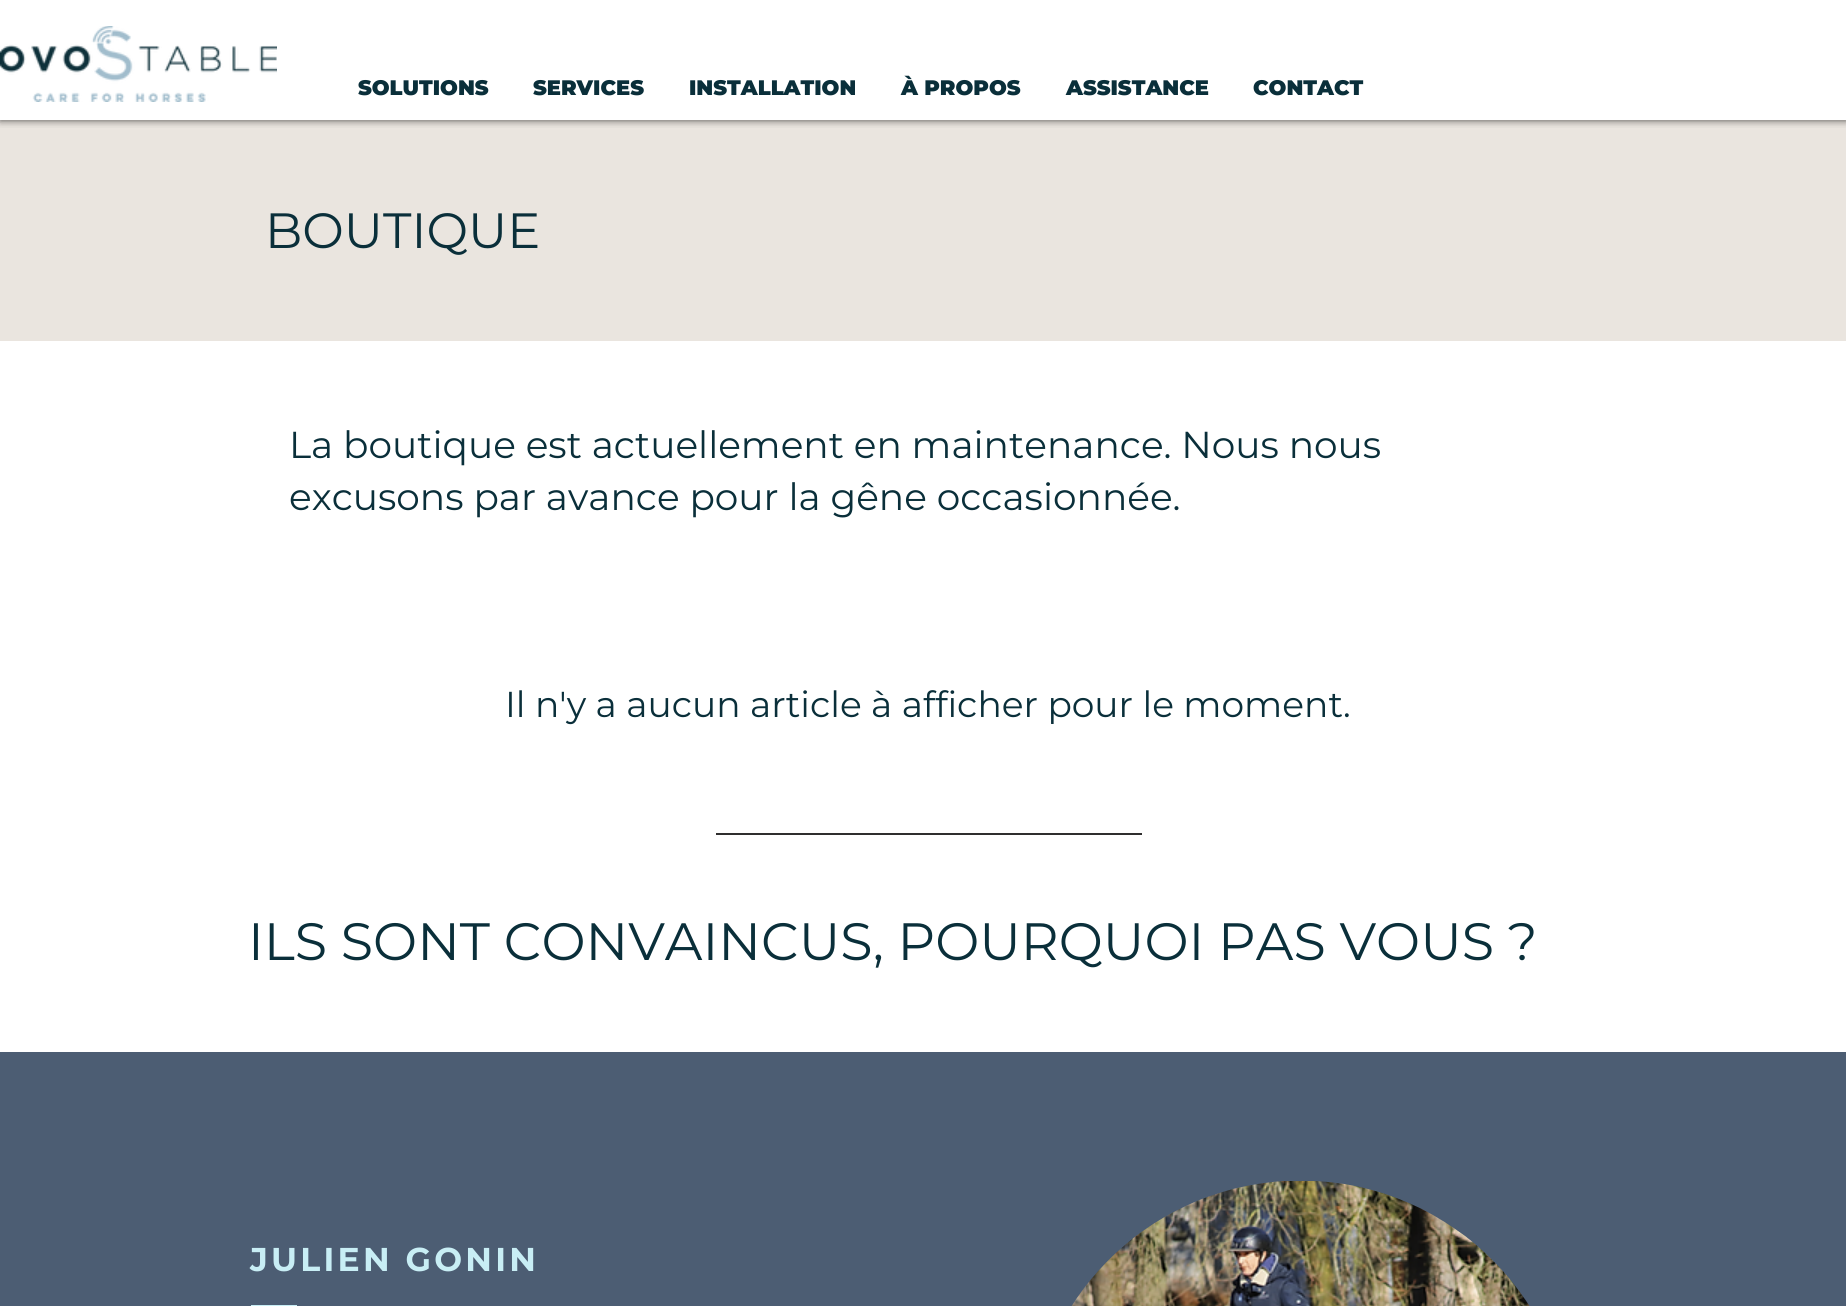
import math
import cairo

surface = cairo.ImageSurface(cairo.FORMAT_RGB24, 1846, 1306)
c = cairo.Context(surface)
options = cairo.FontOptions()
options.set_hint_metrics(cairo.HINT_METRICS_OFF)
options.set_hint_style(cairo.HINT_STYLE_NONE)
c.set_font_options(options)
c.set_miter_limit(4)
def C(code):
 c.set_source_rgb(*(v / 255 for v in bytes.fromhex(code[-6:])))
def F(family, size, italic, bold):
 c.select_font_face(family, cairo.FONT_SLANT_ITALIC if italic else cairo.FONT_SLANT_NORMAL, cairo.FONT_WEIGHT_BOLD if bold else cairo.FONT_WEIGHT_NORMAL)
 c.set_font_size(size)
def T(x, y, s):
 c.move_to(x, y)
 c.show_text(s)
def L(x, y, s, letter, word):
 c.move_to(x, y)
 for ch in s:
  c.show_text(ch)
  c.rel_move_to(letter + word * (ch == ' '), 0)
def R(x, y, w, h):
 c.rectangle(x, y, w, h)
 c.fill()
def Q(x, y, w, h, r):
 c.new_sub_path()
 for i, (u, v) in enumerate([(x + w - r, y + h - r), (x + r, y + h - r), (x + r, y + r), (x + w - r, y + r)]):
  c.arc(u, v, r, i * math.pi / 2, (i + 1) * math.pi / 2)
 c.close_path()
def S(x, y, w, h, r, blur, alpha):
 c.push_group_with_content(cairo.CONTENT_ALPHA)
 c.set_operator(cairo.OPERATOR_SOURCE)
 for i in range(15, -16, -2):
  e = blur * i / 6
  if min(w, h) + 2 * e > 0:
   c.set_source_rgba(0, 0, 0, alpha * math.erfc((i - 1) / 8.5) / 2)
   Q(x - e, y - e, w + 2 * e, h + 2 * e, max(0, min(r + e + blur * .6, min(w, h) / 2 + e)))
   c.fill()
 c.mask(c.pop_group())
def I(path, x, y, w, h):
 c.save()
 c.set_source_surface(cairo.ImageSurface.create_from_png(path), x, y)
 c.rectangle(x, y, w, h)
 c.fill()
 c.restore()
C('ffffff')
c.paint()
C('eae5df')
R(0,120,1846,221)
c.save()
c.rectangle(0,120,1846,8)
c.clip()
C('000000')
S(0,0,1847,120,0,4,.7)
c.restore()
I('1.png',0,26,277,76)
F('Montserrat Thin',21,0,0)
C('0a2f3a')
T(358,95,'SOLUTIONS')
T(533,95,'SERVICES')
T(689,95,'INSTALLATION')
T(901,95,'À PROPOS')
T(1066,95,'ASSISTANCE')
T(1253,95,'CONTACT')
F('Montserrat',49.5,0,0)
T(265,248,'BOUTIQUE')
F('Montserrat',37.5,0,0)
T(289,458,'La boutique est actuellement en maintenance. Nous nous')
T(289,510,'excusons par avance pour la gêne occasionnée.')
F('Montserrat',36,0,0)
T(505,717,'Il n\'y a aucun article à afficher pour le moment.')
C('2f2e2e')
R(716,833,426,2)
F('Montserrat',52.5,0,0)
C('0a2f3a')
T(248,960,'ILS SONT CONVAINCUS, POURQUOI PAS VOUS ?')
C('4c5d73')
R(0,1052,1846,254)
F('Montserrat',33,0,1)
C('c8eef5')
L(250,1271,'JULIEN GONIN',3.25,0)
I('2.png',1071,1181,459,125)
R(251,1305,46,1)
surface.write_to_png('o.png')
